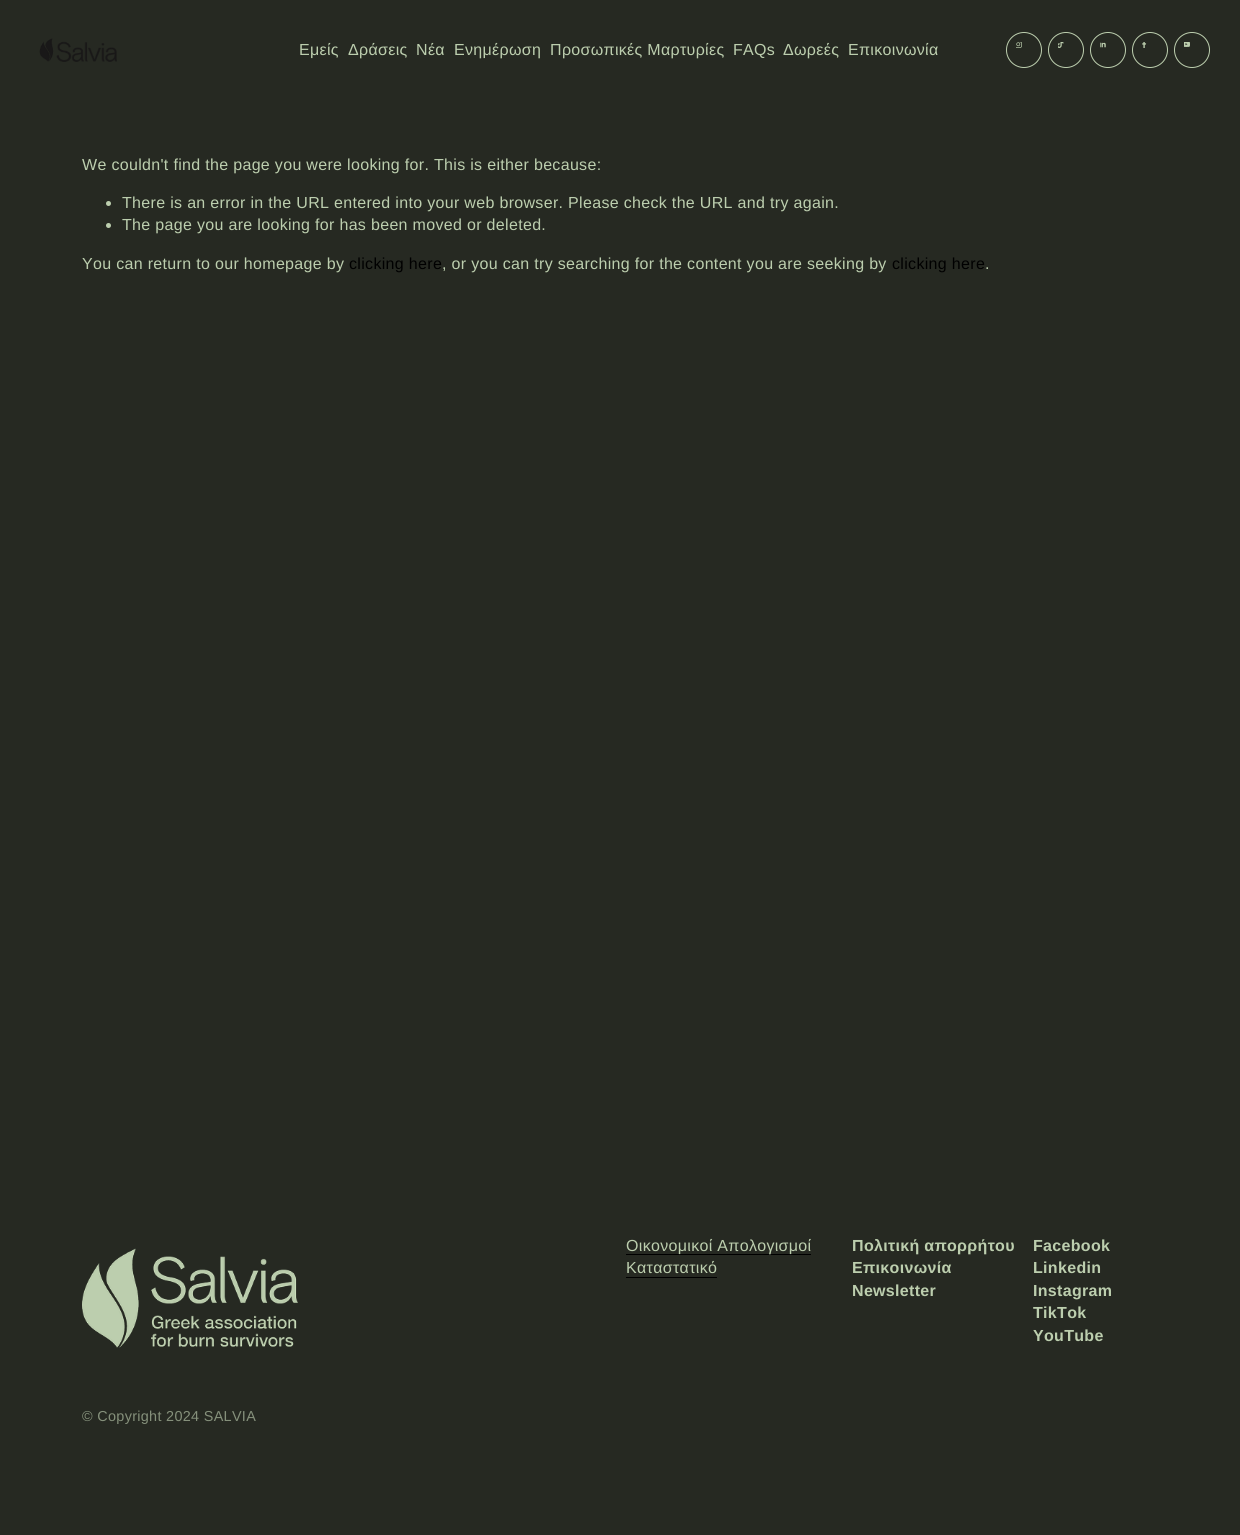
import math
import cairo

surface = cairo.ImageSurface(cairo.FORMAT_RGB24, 1240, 1535)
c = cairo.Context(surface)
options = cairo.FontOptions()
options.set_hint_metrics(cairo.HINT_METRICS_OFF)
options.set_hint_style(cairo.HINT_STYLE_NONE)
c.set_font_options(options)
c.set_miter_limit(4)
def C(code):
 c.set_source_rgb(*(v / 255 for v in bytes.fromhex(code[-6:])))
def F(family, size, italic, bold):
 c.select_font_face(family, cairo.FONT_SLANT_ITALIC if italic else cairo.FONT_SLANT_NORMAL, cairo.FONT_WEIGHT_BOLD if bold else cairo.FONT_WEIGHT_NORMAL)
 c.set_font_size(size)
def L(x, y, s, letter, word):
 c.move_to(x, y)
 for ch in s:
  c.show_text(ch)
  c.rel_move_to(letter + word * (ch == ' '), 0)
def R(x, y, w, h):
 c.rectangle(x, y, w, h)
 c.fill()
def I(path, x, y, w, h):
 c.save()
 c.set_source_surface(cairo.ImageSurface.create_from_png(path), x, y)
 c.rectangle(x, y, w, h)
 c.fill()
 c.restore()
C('262922')
c.paint()
I('1.png',39,38,78,24)
F('Liberation Sans',16,0,0)
C('bcceae')
L(299,55,'Εμείς',.32,0)
L(348,55,'Δράσεις',.32,0)
L(416,55,'Νέα',.32,0)
L(454,55,'Ενημέρωση',.32,0)
L(550,55,'Προσωπικές Μαρτυρίες',.32,0)
L(733,55,'FAQs',.32,0)
L(783,55,'Δωρεές',.32,0)
L(848,55,'Επικοινωνία',.32,0)
c.new_path()
c.arc(1024,50,17.5,0,2 * math.pi)
c.set_line_width(1)
c.stroke()
I('2.png',1016,42,6,6)
c.arc(1066,50,17.5,0,2 * math.pi)
c.stroke()
I('3.png',1058,42,6,6)
c.arc(1108,50,17.5,0,2 * math.pi)
c.stroke()
I('4.png',1100,42,6,6)
c.arc(1150,50,17.5,0,2 * math.pi)
c.stroke()
I('5.png',1142,42,5,6)
c.arc(1192,50,17.5,0,2 * math.pi)
c.stroke()
I('6.png',1184,42,6,5)
L(82,170,'We couldn\'t find the page you were looking for. This is either because:',.32,0)
c.new_path()
c.arc(108.5,203.5,2.5,0,2 * math.pi)
c.fill()
L(122,208,'There is an error in the URL entered into your web browser. Please check the URL and try again.',.32,0)
c.new_path()
c.arc(108.5,225.5,2.5,0,2 * math.pi)
c.fill()
L(122,230,'The page you are looking for has been moved or deleted.',.32,0)
L(82,269,'You can return to our homepage by',.32,0)
C('000000')
L(349,269,'clicking here',.32,0)
C('bcceae')
L(442,269,', or you can try searching for the content you are seeking by',.32,0)
C('000000')
L(892,269,'clicking here',.32,0)
C('bcceae')
L(985,269,'.',.32,0)
I('7.png',82,1248,216,100)
C('000000')
R(626,1254,185,1)
C('bcceae')
L(626,1251,'Οικονομικοί Απολογισμοί',.32,0)
L(626,1273,'Καταστατικό',.32,0)
C('000000')
R(626,1277,91,1)
F('Liberation Sans',16,0,1)
C('bcceae')
L(852,1251,'Πολιτική απορρήτου',.32,0)
L(852,1273,'Επικοινωνία',.32,0)
L(852,1296,'Newsletter',.32,0)
L(1033,1251,'Facebook',.32,0)
L(1033,1273,'Linkedin',.32,0)
L(1033,1296,'Instagram',.32,0)
L(1033,1318,'TikTok',.32,0)
L(1033,1341,'YouTube',.32,0)
F('Liberation Sans',14.4,0,0)
C('85907b')
L(82,1421,'© Copyright 2024 SALVIA',.32,0)
surface.write_to_png('o.png')
